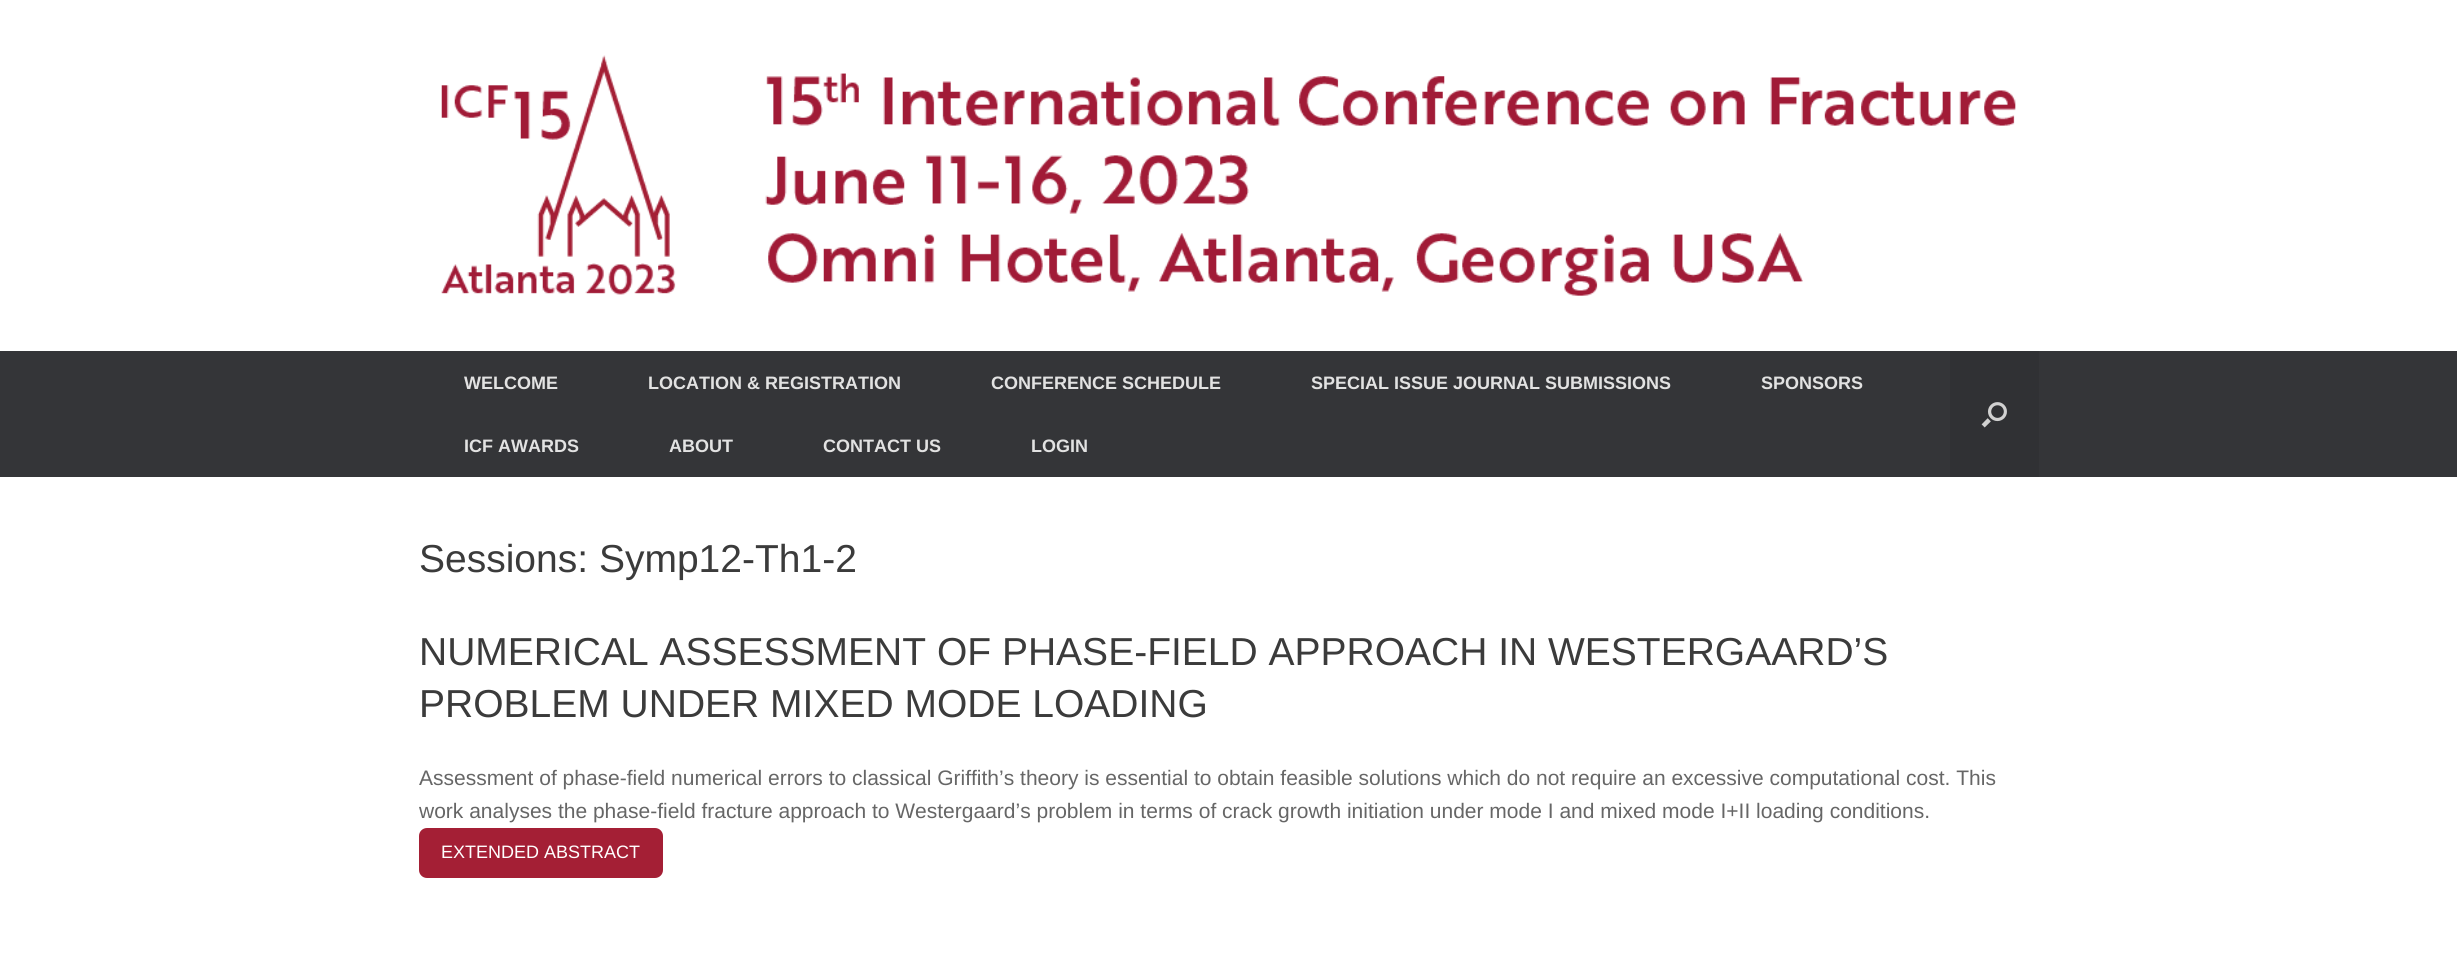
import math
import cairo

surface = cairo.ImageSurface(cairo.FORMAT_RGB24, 2457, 958)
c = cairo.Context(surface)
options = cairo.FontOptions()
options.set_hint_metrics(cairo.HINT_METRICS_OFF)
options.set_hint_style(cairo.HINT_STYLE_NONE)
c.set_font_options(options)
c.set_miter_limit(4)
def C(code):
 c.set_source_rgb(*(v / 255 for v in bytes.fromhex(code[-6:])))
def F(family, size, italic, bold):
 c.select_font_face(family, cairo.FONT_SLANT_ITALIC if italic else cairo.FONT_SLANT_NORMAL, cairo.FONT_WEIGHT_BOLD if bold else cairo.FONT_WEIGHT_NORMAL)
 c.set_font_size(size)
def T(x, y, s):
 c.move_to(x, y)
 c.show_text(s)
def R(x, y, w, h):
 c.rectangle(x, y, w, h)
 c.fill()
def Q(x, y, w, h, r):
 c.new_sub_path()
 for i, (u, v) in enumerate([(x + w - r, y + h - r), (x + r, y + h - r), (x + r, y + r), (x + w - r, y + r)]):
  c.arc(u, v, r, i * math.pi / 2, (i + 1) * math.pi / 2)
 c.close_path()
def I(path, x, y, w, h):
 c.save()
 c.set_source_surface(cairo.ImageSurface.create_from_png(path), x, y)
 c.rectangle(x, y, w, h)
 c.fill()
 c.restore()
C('ffffff')
c.paint()
I('1.png',441,55,1575,241)
C('343538')
R(0,351,2457,126)
F('Liberation Sans',18,0,1)
C('e2e2e2')
T(464,389,'WELCOME')
T(648,389,'LOCATION & REGISTRATION')
T(991,389,'CONFERENCE SCHEDULE')
T(1311,389,'SPECIAL ISSUE JOURNAL SUBMISSIONS')
T(1761,389,'SPONSORS')
T(464,452,'ICF AWARDS')
T(669,452,'ABOUT')
T(823,452,'CONTACT US')
T(1031,452,'LOGIN')
C('303134')
R(1950,351,89,126)
I('2.png',1981,402,26,26)
F('Liberation Sans',39,0,0)
C('3b3b3b')
T(419,572,'Sessions: Symp12-Th1-2')
T(419,665,'NUMERICAL ASSESSMENT OF PHASE-FIELD APPROACH IN WESTERGAARD’S')
T(419,717,'PROBLEM UNDER MIXED MODE LOADING')
F('Liberation Sans',21,0,0)
C('666666')
T(419,785,'Assessment of phase-field numerical errors to classical Griffith’s theory is essential to obtain feasible solutions which do not require an excessive computational cost. This')
T(419,818,'work analyses the phase-field fracture approach to Westergaard’s problem in terms of crack growth initiation under mode I and mixed mode I+II loading conditions.')
C('a41f35')
Q(419,828,244,50,8)
c.fill()
F('Liberation Sans',18,0,0)
C('ffffff')
T(441,858,'EXTENDED ABSTRACT')
surface.write_to_png('o.png')
